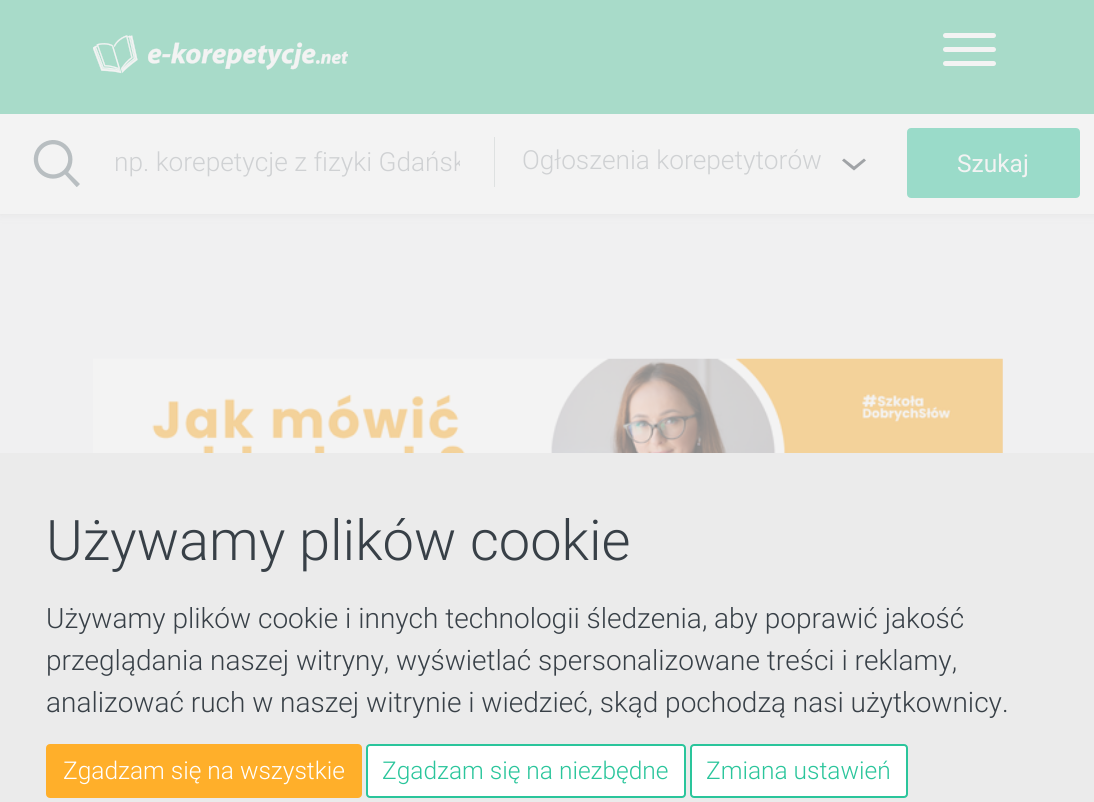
import math
import cairo

surface = cairo.ImageSurface(cairo.FORMAT_RGB24, 1094, 802)
c = cairo.Context(surface)
options = cairo.FontOptions()
options.set_hint_metrics(cairo.HINT_METRICS_OFF)
options.set_hint_style(cairo.HINT_STYLE_NONE)
c.set_font_options(options)
c.set_miter_limit(4)
def C(code):
 c.set_source_rgb(*(v / 255 for v in bytes.fromhex(code[-6:])))
def F(family, size, italic, bold):
 c.select_font_face(family, cairo.FONT_SLANT_ITALIC if italic else cairo.FONT_SLANT_NORMAL, cairo.FONT_WEIGHT_BOLD if bold else cairo.FONT_WEIGHT_NORMAL)
 c.set_font_size(size)
def T(x, y, s):
 c.move_to(x, y)
 c.show_text(s)
def R(x, y, w, h):
 c.rectangle(x, y, w, h)
 c.fill()
def Q(x, y, w, h, r):
 c.new_sub_path()
 for i, (u, v) in enumerate([(x + w - r, y + h - r), (x + r, y + h - r), (x + r, y + r), (x + w - r, y + r)]):
  c.arc(u, v, r, i * math.pi / 2, (i + 1) * math.pi / 2)
 c.close_path()
def S(x, y, w, h, r, blur, alpha):
 c.push_group_with_content(cairo.CONTENT_ALPHA)
 c.set_operator(cairo.OPERATOR_SOURCE)
 for i in range(15, -16, -2):
  e = blur * i / 6
  if min(w, h) + 2 * e > 0:
   c.set_source_rgba(0, 0, 0, alpha * math.erfc((i - 1) / 8.5) / 2)
   Q(x - e, y - e, w + 2 * e, h + 2 * e, max(0, min(r + e + blur * .6, min(w, h) / 2 + e)))
   c.fill()
 c.mask(c.pop_group())
def I(path, x, y, w, h):
 c.save()
 c.set_source_surface(cairo.ImageSurface.create_from_png(path), x, y)
 c.rectangle(x, y, w, h)
 c.fill()
 c.restore()
C('f0f0f1')
c.paint()
C('e3e3e3')
S(0,0,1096,214,0,4.5,1)
C('a8dbc9')
R(0,0,1094,114)
I('1.png',93,35,255,39)
C('f3f3f3')
Q(943,33,53,5,2.5)
c.fill()
Q(943,47,53,5,2.5)
c.fill()
Q(943,61,53,5,2.5)
c.fill()
R(0,114,1094,100)
I('2.png',33,140,47,47)
C('dee1e1')
R(494,137,1,50)
c.save()
c.rectangle(114,147,346,32)
c.clip()
F('Roboto Light',26.25,0,0)
C('cfd1d3')
T(114,171,'np. korepetycje z fizyki Gdańsk')
c.restore()
C('a0a3a6')
c.set_fill_rule(cairo.FILL_RULE_EVEN_ODD)
c.new_path()
c.move_to(851.5,168.5)
c.line_to(842,160.5)
c.line_to(844,158.5)
c.line_to(854,166.5)
c.line_to(864,158.5)
c.line_to(866,160.5)
c.line_to(854,170.5)
c.close_path()
c.fill()
F('Roboto Light',26.25,0,0)
C('cfd1d3')
T(522,169,'Ogłoszenia korepetytorów')
C('9adbc9')
Q(908,129,171,68,3)
c.fill_preserve()
c.stroke()
F('Roboto',24.5,0,0)
C('f3f3f3')
T(957,172,'Szukaj')
I('3.png',93,358,910,95)
C('ebebeb')
R(0,453,1094,349)
F('Roboto Light',56,0,0)
C('384047')
T(46,560,'Używamy plików cookie')
F('Roboto Light',28,0,0)
T(46,628,'Używamy plików cookie i innych technologii śledzenia, aby poprawić jakość')
T(46,670,'przeglądania naszej witryny, wyświetlać spersonalizowane treści i reklamy,')
T(46,712,'analizować ruch w naszej witrynie i wiedzieć, skąd pochodzą nasi użytkownicy.')
C('ffaf2a')
Q(47,745,314,52,3)
c.fill_preserve()
c.stroke()
F('Roboto Light',24.5,0,0)
C('ffffff')
T(63,779,'Zgadzam się na wszystkie')
Q(367,745,318,52,3)
c.fill_preserve()
C('2ac59b')
c.stroke()
T(382,779,'Zgadzam się na niezbędne')
C('ffffff')
Q(691,745,216,52,3)
c.fill_preserve()
C('2ac59b')
c.stroke()
T(706,779,'Zmiana ustawień')
surface.write_to_png('o.png')
